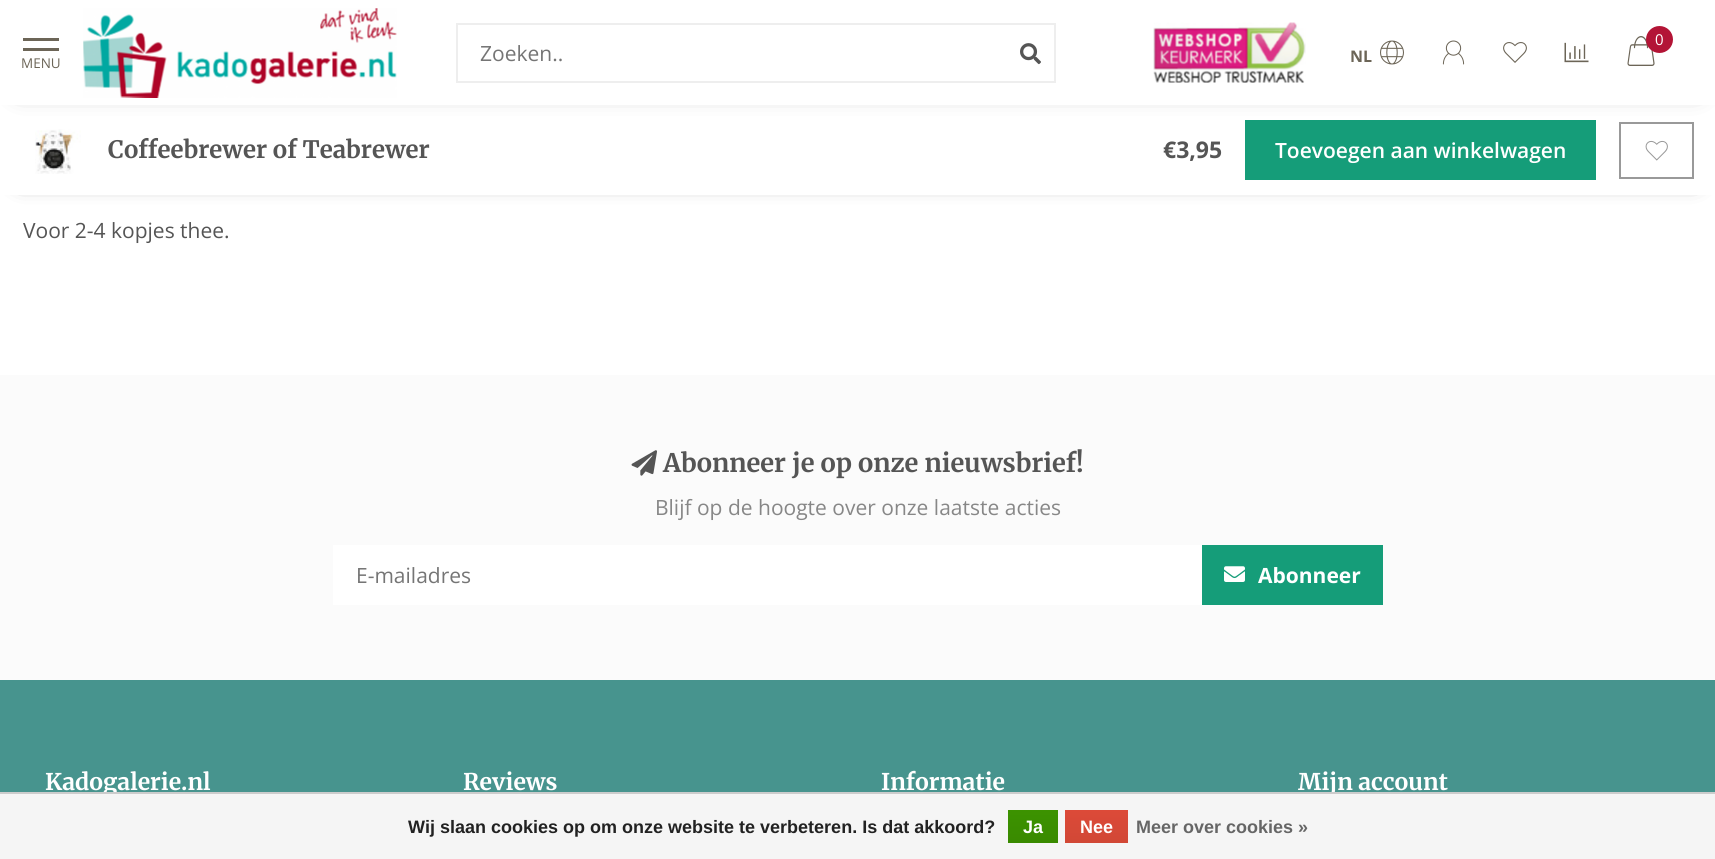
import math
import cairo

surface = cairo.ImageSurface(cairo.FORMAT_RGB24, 1715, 859)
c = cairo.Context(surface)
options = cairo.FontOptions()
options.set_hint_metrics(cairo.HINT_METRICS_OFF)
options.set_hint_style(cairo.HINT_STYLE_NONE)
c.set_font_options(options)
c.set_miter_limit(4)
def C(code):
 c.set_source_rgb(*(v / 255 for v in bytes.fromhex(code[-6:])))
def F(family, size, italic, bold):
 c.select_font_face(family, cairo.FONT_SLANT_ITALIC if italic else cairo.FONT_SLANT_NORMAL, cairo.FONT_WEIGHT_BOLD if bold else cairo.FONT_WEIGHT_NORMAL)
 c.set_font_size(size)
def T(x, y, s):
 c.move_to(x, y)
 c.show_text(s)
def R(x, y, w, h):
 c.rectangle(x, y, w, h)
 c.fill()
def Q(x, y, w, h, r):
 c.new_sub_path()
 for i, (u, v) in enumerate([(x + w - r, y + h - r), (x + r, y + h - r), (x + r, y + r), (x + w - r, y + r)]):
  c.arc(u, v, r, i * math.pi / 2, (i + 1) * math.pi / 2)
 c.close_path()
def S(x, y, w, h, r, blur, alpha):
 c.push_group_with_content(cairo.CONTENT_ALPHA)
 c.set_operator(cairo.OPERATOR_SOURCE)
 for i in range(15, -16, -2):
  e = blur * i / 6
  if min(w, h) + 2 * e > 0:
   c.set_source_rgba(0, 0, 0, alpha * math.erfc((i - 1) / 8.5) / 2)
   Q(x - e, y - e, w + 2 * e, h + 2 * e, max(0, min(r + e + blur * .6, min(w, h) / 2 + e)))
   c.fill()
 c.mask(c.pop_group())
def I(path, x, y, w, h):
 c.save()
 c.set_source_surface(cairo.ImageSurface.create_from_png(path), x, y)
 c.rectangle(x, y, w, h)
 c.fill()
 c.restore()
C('ffffff')
c.paint()
C('000000')
S(21,129,1674,48,0,11,1)
C('ffffff')
R(0,105,1715,90)
C('159d79')
R(1245,120,351,60)
c.rectangle(1620,123,73,55)
C('999999')
c.stroke()
C('000000')
S(20,20,1677,66,0,12,.8)
C('ffffff')
R(0,0,1715,105)
c.rectangle(457,24,598,58)
C('eeeeee')
c.stroke()
F('Open Sans',21,0,0)
C('757575')
T(480,61,'Zoeken..')
I('1.png',1020,43,21,22)
I('2.png',1153,22,153,61)
I('3.png',1627,36,28,30)
C('b31436')
c.arc(1659.5,39.5,13.5,0,2 * math.pi)
c.fill()
F('Open Sans',15,0,0)
C('ffffff')
T(1655,45,'0')
F('Open Sans',16,0,1)
C('6c6557')
T(1350,62,'NL')
I('4.png',1380,40,24,25)
I('5.png',1442,40,23,25)
I('6.png',1503,42,24,21)
I('7.png',1564,42,25,21)
R(23,38,36,3)
R(23,48,36,3)
F('Open Sans',13.5,0,0)
T(21,68,'MENU')
I('8.png',83,8,314,90)
I('9.png',35,129,46,45)
F('Merriweather',24,0,1)
C('555555')
T(108,158,'Coffeebrewer of Teabrewer')
F('Open Sans',23,0,1)
T(1163,158,'€3,95')
F('Open Sans SemiBold',21,0,0)
C('ffffff')
T(1275,158,'Toevoegen aan winkelwagen')
I('10.png',1645,140,23,21)
F('Open Sans',21,0,0)
C('555555')
T(23,238,'Voor 2-4 kopjes thee.')
C('fbfbfb')
R(0,375,1715,305)
I('11.png',631,450,26,26)
F('Merriweather',25.5,0,1)
C('555555')
T(663,472,'Abonneer je op onze nieuwsbrief!')
F('Open Sans',21,0,0)
C('878787')
T(655,515,'Blijf op de hoogte over onze laatste acties')
C('ffffff')
R(333,545,869,60)
C('757575')
T(356,583,'E-mailadres')
C('159d79')
R(1202,545,181,60)
I('12.png',1224,566,21,16)
F('Open Sans',21,0,1)
C('ffffff')
T(1258,583,'Abonneer')
C('47948e')
R(0,680,1715,112)
F('Merriweather',23,0,1)
C('ffffff')
T(45,790,'Kadogalerie.nl')
T(463,790,'Reviews')
T(881,790,'Informatie')
T(1298,790,'Mijn account')
C('f5f5f5')
R(0,794,1715,65)
C('cccccc')
R(0,792,1715,2)
F('Liberation Sans',18,0,1)
C('222222')
T(408,833,'Wij slaan cookies op om onze website te verbeteren. Is dat akkoord?')
gradient = cairo.LinearGradient(1033,810,1033,843)
gradient.add_color_stop_rgba(0,0.235,0.576,0,1)
gradient.add_color_stop_rgba(1,0.224,0.541,0,1)
c.set_source(gradient)
R(1008,810,50,33)
C('ffffff')
T(1023,833,'Ja')
gradient = cairo.LinearGradient(1097,810,1097,843)
gradient.add_color_stop_rgba(0,0.863,0.29,0.22,1)
gradient.add_color_stop_rgba(1,0.82,0.282,0.212,1)
c.set_source(gradient)
R(1065,810,63,33)
C('ffffff')
T(1080,833,'Nee')
C('666666')
T(1136,833,'Meer over cookies »')
surface.write_to_png('o.png')
